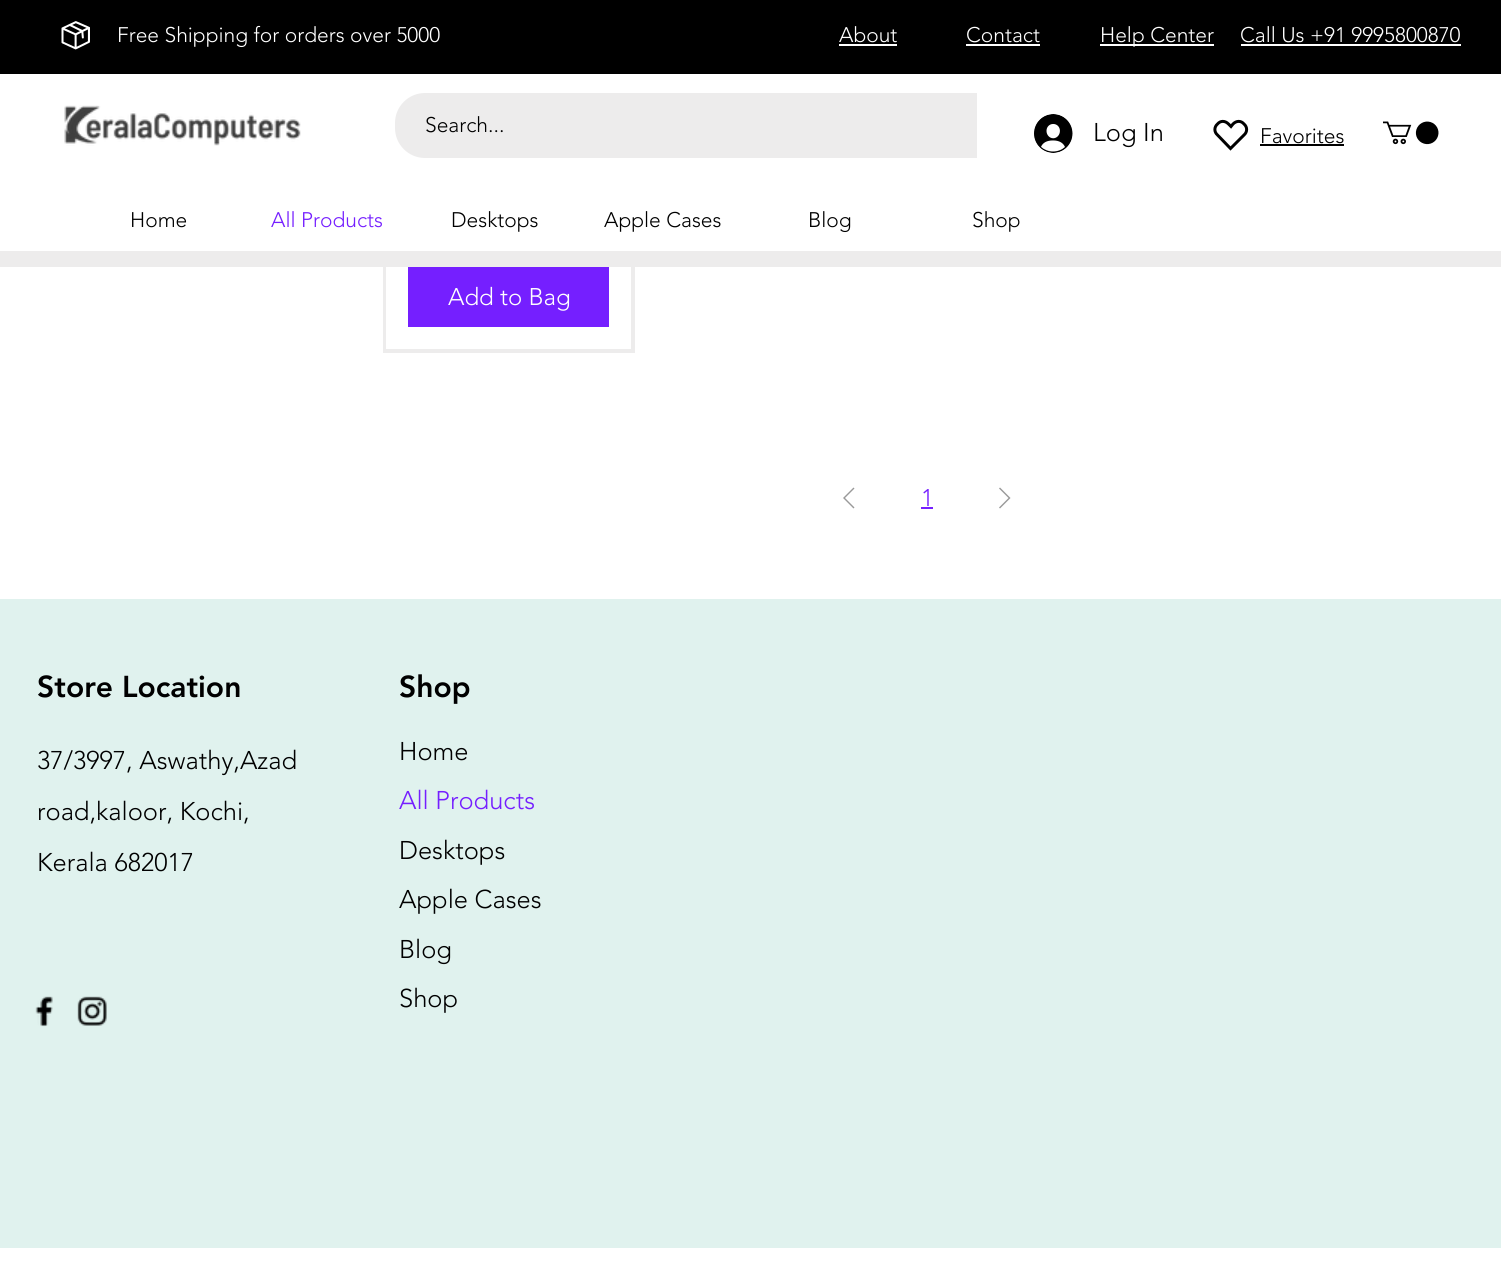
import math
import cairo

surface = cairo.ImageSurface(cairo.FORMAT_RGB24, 1501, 1262)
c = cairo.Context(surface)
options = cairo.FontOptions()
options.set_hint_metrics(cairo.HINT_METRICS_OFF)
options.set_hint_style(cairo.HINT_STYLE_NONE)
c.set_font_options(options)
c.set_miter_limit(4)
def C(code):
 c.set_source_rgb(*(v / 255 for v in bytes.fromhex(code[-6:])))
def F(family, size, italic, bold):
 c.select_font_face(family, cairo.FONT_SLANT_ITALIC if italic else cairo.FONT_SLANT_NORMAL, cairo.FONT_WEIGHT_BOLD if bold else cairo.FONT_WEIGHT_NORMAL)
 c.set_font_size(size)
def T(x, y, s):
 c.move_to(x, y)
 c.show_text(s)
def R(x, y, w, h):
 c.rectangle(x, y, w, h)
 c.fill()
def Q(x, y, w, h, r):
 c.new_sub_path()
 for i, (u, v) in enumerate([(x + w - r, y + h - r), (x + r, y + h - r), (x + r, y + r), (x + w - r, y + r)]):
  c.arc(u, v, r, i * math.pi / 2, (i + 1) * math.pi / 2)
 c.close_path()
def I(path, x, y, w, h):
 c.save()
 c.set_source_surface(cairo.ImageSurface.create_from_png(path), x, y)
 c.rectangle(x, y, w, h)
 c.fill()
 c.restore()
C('ffffff')
c.paint()
c.rectangle(385,-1,247,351)
C('edecec')
c.stroke()
c.rectangle(384,-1,250,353)
c.stroke()
C('000000')
R(0,0,1501,74)
I('1.png',61,21,29,29)
F('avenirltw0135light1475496 Light',21,0,0)
C('ffffff')
T(117,42,'Free Shipping for orders over 5000')
T(839,42,'About')
R(839,44,58,2)
T(966,42,'Contact')
R(966,44,74,2)
R(1100,44,114,2)
T(1100,42,'Help Center')
T(1240,42,'Call Us +91 9995800870')
R(1241,44,220,2)
R(383,74,252,177)
I('2.png',64,105,237,41)
C('edecec')
Q(395,93,891,65,30)
c.fill()
C('000000')
T(425,132,'Search...')
C('ffffff')
R(977,93,309,65)
I('3.png',1034,114,39,39)
F('avenirltw0135light1475496 Light',25.5,0,0)
C('000000')
T(1093,141,'Log In')
c.new_path()
c.move_to(1244,124)
c.curve_to(1241,120.5,1236.5,120.5,1233,124)
c.line_to(1231,126.5)
c.line_to(1228.5,124)
c.curve_to(1225,120.5,1220.5,120.5,1217.5,124)
c.curve_to(1214,127,1214,132,1217.5,135)
c.line_to(1230.5,148.5)
c.line_to(1244,135)
c.curve_to(1247.5,132,1247.5,127,1244,124)
c.close_path()
c.set_line_width(3)
c.stroke()
F('avenirltw0135light1475496 Light',21,0,0)
T(1260,143,'Favorites')
R(1260,144,84,2)
I('4.png',1383,121,56,24)
T(130,227,'Home')
C('751fff')
T(271,227,'All Products')
C('000000')
T(451,227,'Desktops')
T(604,227,'Apple Cases')
T(808,227,'Blog')
T(972,227,'Shop')
C('edecec')
R(0,251,1501,16)
C('751fff')
R(408,267,201,60)
F('avenirltw0135light1475496 Light',24,0,0)
C('ffffff')
T(448,305,'Add to Bag')
C('999999')
c.set_fill_rule(cairo.FILL_RULE_EVEN_ODD)
c.new_path()
c.move_to(853.5,487.5)
c.line_to(854.5,488.5)
c.line_to(845,498)
c.line_to(854.5,507.5)
c.line_to(853.5,508.5)
c.line_to(843,498)
c.close_path()
c.fill()
C('751fff')
T(921,506,'1')
R(921,507,12,2)
C('999999')
c.new_path()
c.move_to(1000,487.5)
c.line_to(1010.5,498)
c.line_to(1000,508.5)
c.line_to(999,507.5)
c.line_to(1008.5,498)
c.line_to(999,488.5)
c.close_path()
c.fill()
C('e0f2ee')
R(0,599,1501,649)
F('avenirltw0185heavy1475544 Black',30,0,0)
C('000000')
T(37,697,'Store Location')
F('avenirltw0135light1475496 Light',25.5,0,0)
T(37,769,'37/3997, Aswathy,Azad')
T(37,820,'road,kaloor, Kochi,')
T(37,871,'Kerala 682017')
I('5.png',35,996,18,31)
I('6.png',77,996,30,30)
F('avenirltw0185heavy1475544 Black',30,0,0)
T(399,697,'Shop')
F('avenirltw0135light1475496 Light',25.5,0,0)
T(399,760,'Home')
C('751fff')
T(399,809,'All Products')
C('000000')
T(399,859,'Desktops')
T(399,908,'Apple Cases')
T(399,958,'Blog')
T(399,1007,'Shop')
surface.write_to_png('o.png')
